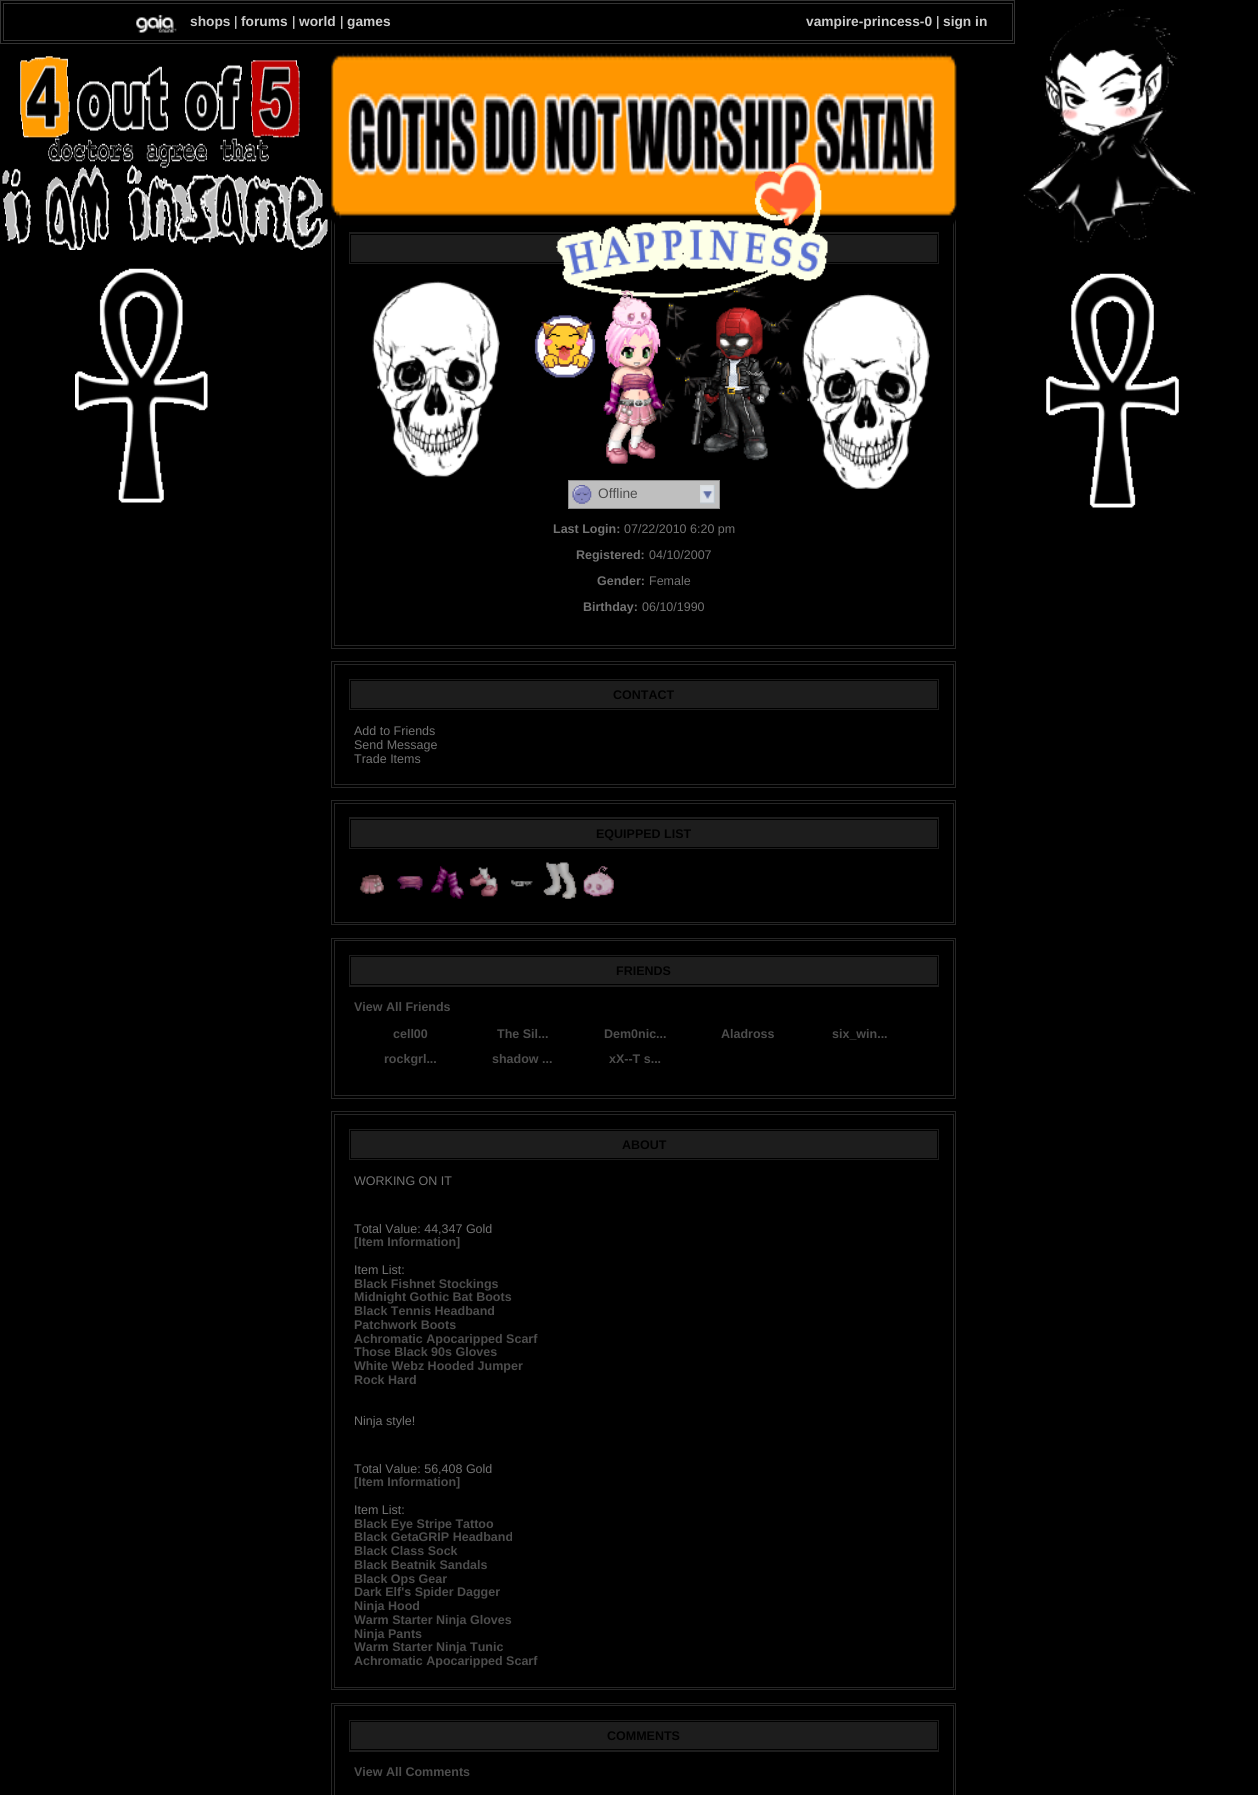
import math
import cairo

surface = cairo.ImageSurface(cairo.FORMAT_RGB24, 1258, 1795)
c = cairo.Context(surface)
options = cairo.FontOptions()
options.set_hint_metrics(cairo.HINT_METRICS_OFF)
options.set_hint_style(cairo.HINT_STYLE_NONE)
c.set_font_options(options)
c.set_miter_limit(4)
def C(code):
 c.set_source_rgb(*(v / 255 for v in bytes.fromhex(code[-6:])))
def F(family, size, italic, bold):
 c.select_font_face(family, cairo.FONT_SLANT_ITALIC if italic else cairo.FONT_SLANT_NORMAL, cairo.FONT_WEIGHT_BOLD if bold else cairo.FONT_WEIGHT_NORMAL)
 c.set_font_size(size)
def T(x, y, s):
 c.move_to(x, y)
 c.show_text(s)
def R(x, y, w, h):
 c.rectangle(x, y, w, h)
 c.fill()
def I(path, x, y, w, h):
 c.save()
 c.set_source_surface(cairo.ImageSurface.create_from_png(path), x, y)
 c.rectangle(x, y, w, h)
 c.fill()
 c.restore()
C('000000')
c.paint()
I('1.png',2,56,326,194)
c.rectangle(331.5,215.5,624,433)
C('262626')
c.set_line_width(1)
c.stroke()
c.rectangle(334.5,218.5,619,427)
c.stroke()
I('2.png',331,53,626,172)
I('3.png',1023,9,173,234)
I('13.png',603,291,60,168)
I('9.png',652,286,149,175)
I('10.png',802,293,128,196)
C('1d1d1d')
R(349,232,590,32)
c.rectangle(350.5,234.5,587,28)
C('000000')
c.stroke()
I('4.png',556,162,272,136)
I('5.png',75,268,133,235)
I('6.png',372,281,128,196)
I('7.png',534,315,62,63)
I('8.png',603,290,60,174)
I('11.png',1046,273,133,235)
c.rectangle(.5,.5,1014,43)
C('333333')
c.stroke()
c.rectangle(3.5,3.5,1009,37)
c.stroke()
I('12.png',136,14,41,19)
F('Liberation Sans',13.75,0,1)
C('cccccc')
T(190,26,'shops')
F('Liberation Sans',13.75,0,0)
C('ffffff')
T(234,26,'|')
F('Liberation Sans',13.75,0,1)
C('cccccc')
T(241,26,'forums')
F('Liberation Sans',13.75,0,0)
C('ffffff')
T(292,26,'|')
F('Liberation Sans',13.75,0,1)
C('cccccc')
T(299,26,'world')
F('Liberation Sans',13.75,0,0)
C('ffffff')
T(340,26,'|')
F('Liberation Sans',13.75,0,1)
C('cccccc')
T(347,26,'games')
T(806,26,'vampire-princess-0')
F('Liberation Sans',13.75,0,0)
C('ffffff')
T(936,26,'|')
F('Liberation Sans',13.75,0,1)
C('cccccc')
T(943,26,'sign in')
C('bfbfbf')
c.rectangle(568.5,480.5,151,28)
c.fill_preserve()
C('8c8c8c')
c.stroke()
I('14.png',700,485,15,19)
I('15.png',572,485,20,19)
F('Liberation Sans',13.75,0,0)
C('4d4d4d')
T(598,498,'Offline')
F('Liberation Sans',12.5,0,1)
C('737373')
T(553,533,'Last Login:')
F('Liberation Sans',12.5,0,0)
T(624,533,'07/22/2010 6:20 pm')
F('Liberation Sans',12.5,0,1)
T(576,559,'Registered:')
F('Liberation Sans',12.5,0,0)
T(649,559,'04/10/2007')
F('Liberation Sans',12.5,0,1)
T(597,585,'Gender:')
F('Liberation Sans',12.5,0,0)
T(649,585,'Female')
F('Liberation Sans',12.5,0,1)
T(583,611,'Birthday:')
F('Liberation Sans',12.5,0,0)
T(642,611,'06/10/1990')
c.rectangle(331.5,661.5,624,126)
C('262626')
c.stroke()
c.rectangle(334.5,664.5,619,120)
c.stroke()
C('1d1d1d')
R(349,679,590,31)
c.rectangle(350.5,680.5,587,28)
C('000000')
c.stroke()
F('Liberation Sans',12.5,0,1)
T(613,699,'CONTACT')
F('Liberation Sans',12.5,0,0)
C('737373')
T(354,735,'Add to Friends')
T(354,749,'Send Message')
T(354,763,'Trade Items')
c.rectangle(331.5,800.5,624,124)
C('262626')
c.stroke()
c.rectangle(334.5,803.5,619,119)
c.stroke()
C('1d1d1d')
R(349,817,590,32)
c.rectangle(350.5,819.5,587,28)
C('000000')
c.stroke()
F('Liberation Sans',12.5,0,1)
T(596,838,'EQUIPPED LIST')
I('16.png',359,874,25,20)
I('17.png',397,876,26,15)
I('18.png',431,866,33,33)
I('19.png',469,867,29,30)
I('20.png',511,879,22,8)
I('21.png',543,862,34,37)
I('22.png',583,866,31,31)
c.rectangle(331.5,938.5,624,160)
C('262626')
c.stroke()
c.rectangle(334.5,940.5,619,155)
c.stroke()
C('1d1d1d')
R(349,955,590,32)
c.rectangle(350.5,956.5,587,28)
C('000000')
c.stroke()
T(616,975,'FRIENDS')
C('4d4d4d')
T(354,1011,'View All Friends')
T(393,1038,'cell00')
T(497,1038,'The Sil...')
T(604,1038,'Dem0nic...')
T(721,1038,'Aladross')
T(832,1038,'six_win...')
T(384,1063,'rockgrl...')
T(492,1063,'shadow ...')
T(609,1063,'xX--T s...')
c.rectangle(331.5,1111.5,624,578)
C('262626')
c.stroke()
c.rectangle(334.5,1114.5,619,573)
c.stroke()
C('1d1d1d')
R(349,1129,590,31)
c.rectangle(350.5,1130.5,587,28)
C('000000')
c.stroke()
T(622,1149,'ABOUT')
F('Liberation Sans',12.5,0,0)
C('737373')
T(354,1185,'WORKING ON IT')
T(354,1233,'Total Value: 44,347 Gold')
F('Liberation Sans',12.5,0,1)
C('4d4d4d')
T(354,1246,'[Item Information]')
F('Liberation Sans',12.5,0,0)
C('737373')
T(354,1274,'Item List:')
F('Liberation Sans',12.5,0,1)
C('4d4d4d')
T(354,1288,'Black Fishnet Stockings')
T(354,1301,'Midnight Gothic Bat Boots')
T(354,1315,'Black Tennis Headband')
T(354,1329,'Patchwork Boots')
T(354,1343,'Achromatic Apocaripped Scarf')
T(354,1356,'Those Black 90s Gloves')
T(354,1370,'White Webz Hooded Jumper')
T(354,1384,'Rock Hard')
F('Liberation Sans',12.5,0,0)
C('737373')
T(354,1425,'Ninja style!')
T(354,1473,'Total Value: 56,408 Gold')
F('Liberation Sans',12.5,0,1)
C('4d4d4d')
T(354,1486,'[Item Information]')
F('Liberation Sans',12.5,0,0)
C('737373')
T(354,1514,'Item List:')
F('Liberation Sans',12.5,0,1)
C('4d4d4d')
T(354,1528,'Black Eye Stripe Tattoo')
T(354,1541,'Black GetaGRIP Headband')
T(354,1555,'Black Class Sock')
T(354,1569,'Black Beatnik Sandals')
T(354,1583,'Black Ops Gear')
T(354,1596,'Dark Elf\'s Spider Dagger')
T(354,1610,'Ninja Hood')
T(354,1624,'Warm Starter Ninja Gloves')
T(354,1638,'Ninja Pants')
T(354,1651,'Warm Starter Ninja Tunic')
T(354,1665,'Achromatic Apocaripped Scarf')
c.rectangle(331.5,1703.5,624,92)
C('262626')
c.stroke()
c.rectangle(334.5,1705.5,619,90)
c.stroke()
C('1d1d1d')
R(349,1720,590,32)
c.rectangle(350.5,1721.5,587,28)
C('000000')
c.stroke()
T(607,1740,'COMMENTS')
C('4d4d4d')
T(354,1776,'View All Comments')
surface.write_to_png('o.png')
